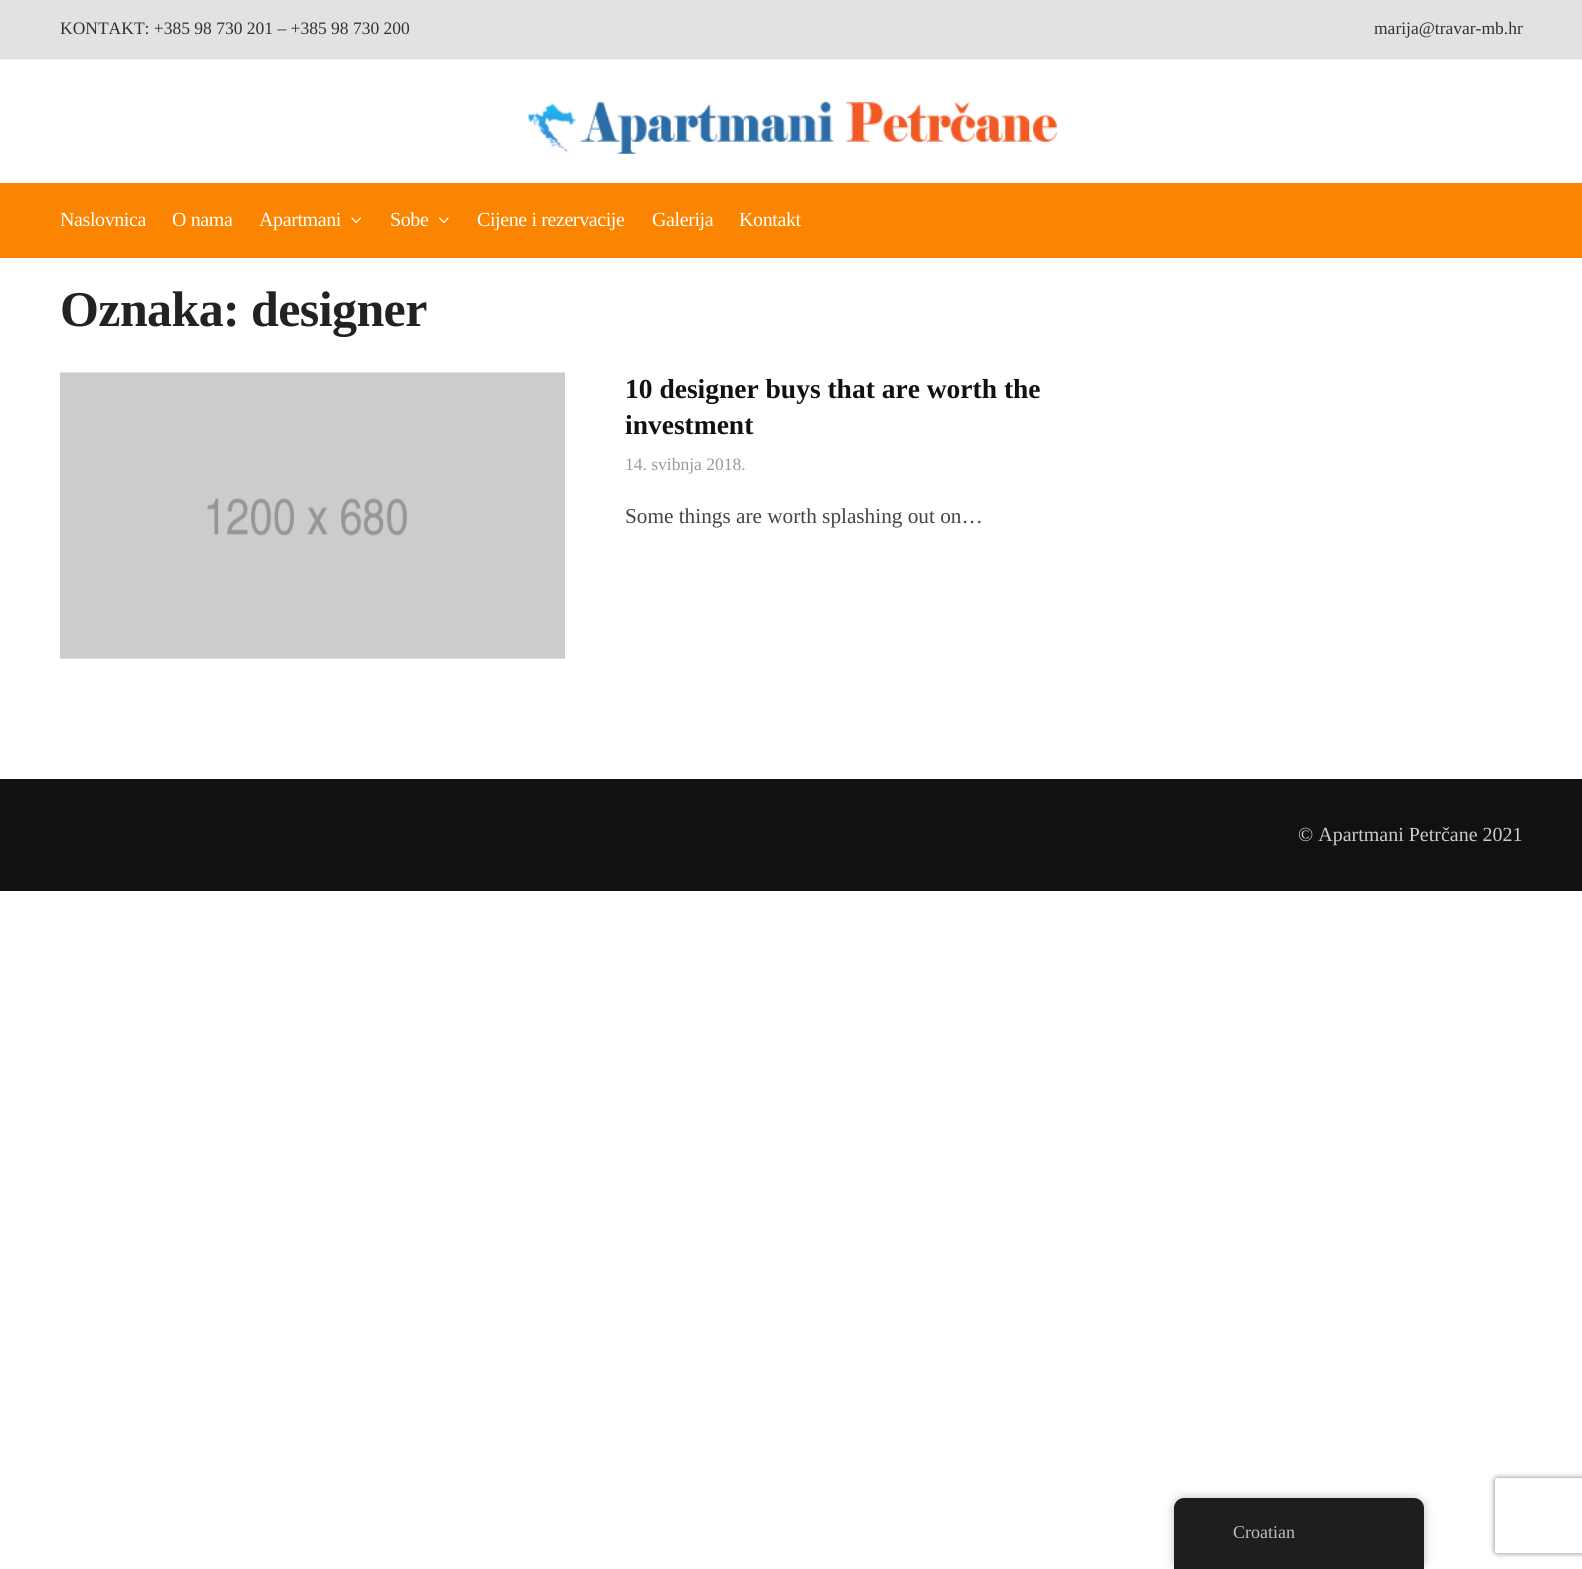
import math
import cairo

surface = cairo.ImageSurface(cairo.FORMAT_RGB24, 1582, 1569)
c = cairo.Context(surface)
options = cairo.FontOptions()
options.set_hint_metrics(cairo.HINT_METRICS_OFF)
options.set_hint_style(cairo.HINT_STYLE_NONE)
c.set_font_options(options)
c.set_miter_limit(4)
def C(code):
 c.set_source_rgb(*(v / 255 for v in bytes.fromhex(code[-6:])))
def F(family, size, italic, bold):
 c.select_font_face(family, cairo.FONT_SLANT_ITALIC if italic else cairo.FONT_SLANT_NORMAL, cairo.FONT_WEIGHT_BOLD if bold else cairo.FONT_WEIGHT_NORMAL)
 c.set_font_size(size)
def T(x, y, s):
 c.move_to(x, y)
 c.show_text(s)
def L(x, y, s, letter, word):
 c.move_to(x, y)
 for ch in s:
  c.show_text(ch)
  c.rel_move_to(letter + word * (ch == ' '), 0)
def R(x, y, w, h):
 c.rectangle(x, y, w, h)
 c.fill()
def Q(x, y, w, h, r):
 c.new_sub_path()
 for i, (u, v) in enumerate([(x + w - r, y + h - r), (x + r, y + h - r), (x + r, y + r), (x + w - r, y + r)]):
  c.arc(u, v, r, i * math.pi / 2, (i + 1) * math.pi / 2)
 c.close_path()
def S(x, y, w, h, r, blur, alpha):
 c.push_group_with_content(cairo.CONTENT_ALPHA)
 c.set_operator(cairo.OPERATOR_SOURCE)
 for i in range(15, -16, -2):
  e = blur * i / 6
  if min(w, h) + 2 * e > 0:
   c.set_source_rgba(0, 0, 0, alpha * math.erfc((i - 1) / 8.5) / 2)
   Q(x - e, y - e, w + 2 * e, h + 2 * e, max(0, min(r + e + blur * .6, min(w, h) / 2 + e)))
   c.fill()
 c.mask(c.pop_group())
def I(path, x, y, w, h):
 c.save()
 c.set_source_surface(cairo.ImageSurface.create_from_png(path), x, y)
 c.rectangle(x, y, w, h)
 c.fill()
 c.restore()
C('ffffff')
c.paint()
C('e2e2e2')
R(0,0,1582,59)
C('eeeeee')
R(0,59,1582,1)
F('Liberation Serif',17.5,0,0)
C('323232')
T(60,34,'KONTAKT: +385 98 730 201 – +385 98 730 200')
T(1374,34,'marija@travar-mb.hr')
I('1.png',527,101,531,53)
C('fb8500')
R(0,183,1582,75)
F('Liberation Serif',20,0,0)
C('ffffff')
L(60,226,'Naslovnica',-.4,0)
L(172,226,'O nama',-.4,0)
L(259,226,'Apartmani',-.4,0)
c.new_path()
c.move_to(360.5,218)
c.line_to(356,222.5)
c.line_to(352,218)
c.set_line_width(1.2)
c.set_line_cap(cairo.LINE_CAP_ROUND)
c.set_line_join(cairo.LINE_JOIN_ROUND)
c.stroke()
L(390,226,'Sobe',-.4,0)
c.new_path()
c.move_to(448,218)
c.line_to(444,222.5)
c.line_to(439.5,218)
c.stroke()
L(477,226,'Cijene i rezervacije',-.4,0)
L(652,226,'Galerija',-.4,0)
L(739,226,'Kontakt',-.4,0)
F('Liberation Serif',50,0,1)
C('222222')
L(60,326,'Oznaka: designer',-.6,0)
I('2.png',60,372,505,287)
F('Liberation Serif',27.5,0,1)
C('111111')
T(625,398,'10 designer buys that are worth the')
T(625,434,'investment')
F('Liberation Serif',17.5,0,0)
C('999999')
T(625,470,'14. svibnja 2018.')
F('Liberation Serif',21.25,0,0)
C('444444')
T(625,523,'Some things are worth splashing out on…')
C('111111')
R(0,779,1582,112)
F('Liberation Serif',20,0,0)
C('cccccc')
T(1298,841,'© Apartmani Petrčane 2021')
C('000000')
S(1174,1498,250,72,10,5,.25)
C('1e1e1e')
c.new_path()
c.move_to(1184,1498)
c.line_to(1414,1498)
c.curve_to(1419.5,1498,1424,1502.5,1424,1508)
c.line_to(1424,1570)
c.line_to(1174,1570)
c.line_to(1174,1508)
c.curve_to(1174,1502.5,1178.5,1498,1184,1498)
c.close_path()
c.fill()
F('Liberation Serif',18,0,0)
C('bdbdbd')
T(1233,1538,'Croatian')
c.save()
c.set_fill_rule(cairo.FILL_RULE_EVEN_ODD)
c.new_path()
c.move_to(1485,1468)
c.line_to(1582,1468)
c.line_to(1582,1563)
c.line_to(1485,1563)
c.close_path()
c.move_to(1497.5,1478)
c.line_to(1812.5,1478)
c.curve_to(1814,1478,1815,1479,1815,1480.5)
c.line_to(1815,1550.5)
c.curve_to(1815,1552,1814,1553,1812.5,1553)
c.line_to(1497.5,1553)
c.curve_to(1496,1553,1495,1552,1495,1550.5)
c.line_to(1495,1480.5)
c.curve_to(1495,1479,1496,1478,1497.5,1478)
c.close_path()
c.clip()
C('808080')
S(1495,1478,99,75,2.5,3,1)
c.restore()
surface.write_to_png('o.png')
